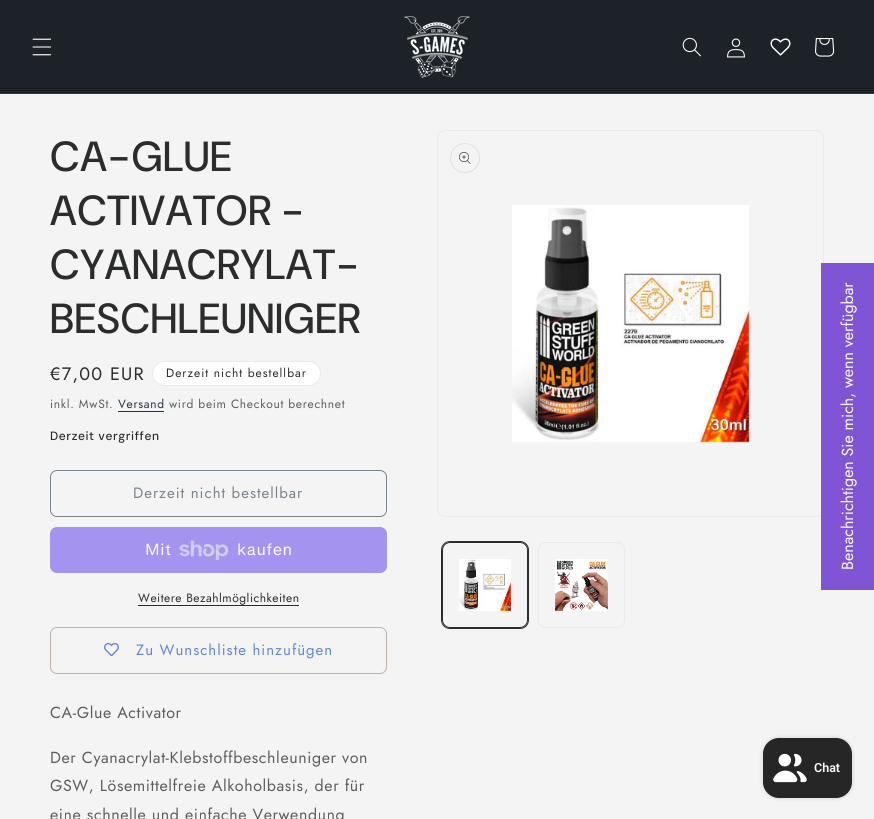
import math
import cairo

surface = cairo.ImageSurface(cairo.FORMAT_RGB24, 874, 819)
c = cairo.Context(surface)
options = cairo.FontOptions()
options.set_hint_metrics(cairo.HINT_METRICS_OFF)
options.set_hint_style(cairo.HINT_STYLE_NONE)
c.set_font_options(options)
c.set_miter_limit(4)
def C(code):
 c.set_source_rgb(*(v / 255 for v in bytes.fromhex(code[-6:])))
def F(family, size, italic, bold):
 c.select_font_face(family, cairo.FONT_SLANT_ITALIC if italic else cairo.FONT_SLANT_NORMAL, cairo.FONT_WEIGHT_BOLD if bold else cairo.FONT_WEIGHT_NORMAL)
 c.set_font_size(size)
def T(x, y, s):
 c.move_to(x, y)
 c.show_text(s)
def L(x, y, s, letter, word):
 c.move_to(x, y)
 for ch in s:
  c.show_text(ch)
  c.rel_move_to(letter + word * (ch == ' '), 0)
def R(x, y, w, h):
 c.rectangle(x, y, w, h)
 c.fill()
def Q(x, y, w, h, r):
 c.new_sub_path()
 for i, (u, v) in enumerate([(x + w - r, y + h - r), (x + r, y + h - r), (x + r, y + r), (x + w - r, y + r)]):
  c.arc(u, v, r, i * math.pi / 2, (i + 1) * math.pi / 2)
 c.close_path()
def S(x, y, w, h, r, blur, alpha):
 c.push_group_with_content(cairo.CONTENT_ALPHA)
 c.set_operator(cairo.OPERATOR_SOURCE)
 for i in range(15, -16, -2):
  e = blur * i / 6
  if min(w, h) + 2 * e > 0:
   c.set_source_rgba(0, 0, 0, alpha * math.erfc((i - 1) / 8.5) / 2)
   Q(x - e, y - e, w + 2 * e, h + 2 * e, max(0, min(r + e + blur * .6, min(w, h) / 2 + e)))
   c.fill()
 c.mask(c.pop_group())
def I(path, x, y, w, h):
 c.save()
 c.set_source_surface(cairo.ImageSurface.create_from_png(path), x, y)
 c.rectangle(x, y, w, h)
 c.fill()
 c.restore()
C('f4f4f4')
c.paint()
C('1c2228')
R(0,0,874,93)
C('2e3439')
R(0,93,874,1)
I('1.png',32,38,20,18)
I('2.png',404,16,66,62)
I('3.png',682,37,19,20)
I('4.png',727,38,18,20)
I('5.png',770,38,21,18)
I('6.png',815,38,20,19)
F('DM Sans Medium',42,0,0)
C('2b2c2d')
L(50,171,'CA-GLUE',.6,0)
L(50,225,'ACTIVATOR -',.6,0)
L(50,279,'CYANACRYLAT-',.6,0)
L(50,333,'BESCHLEUNIGER',.6,0)
F('Jost',18,0,0)
L(50,380,'€7,00 EUR',1.25,0)
C('ffffff')
Q(152,361,169,25,12.5)
c.fill()
Q(152.5,361.5,168,24,12)
c.set_source_rgba(0.169,0.173,0.176,0.1)
c.set_line_width(1)
c.stroke()
F('Jost',12,0,0)
C('2b2c2d')
L(166,377,'Derzeit nicht bestellbar',1,0)
C('5d5e5f')
L(50,408,'inkl. MwSt.',.7,0)
C('253347')
L(118,408,'Versand',.7,0)
R(118,411,46,1)
C('5d5e5f')
L(169,408,'wird beim Checkout berechnet',.7,0)
F('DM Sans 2 Medium',12,0,0)
C('2b2c2d')
L(50,440,'Derzeit vergriffen',.6,0)
Q(50.5,470.5,336,46,6.5)
C('7a838e')
c.stroke()
F('Jost',15,0,0)
L(133,498,'Derzeit nicht bestellbar',1,0)
C('a494f0')
Q(50,527,337,46,7)
c.fill()
F('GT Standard',16,0,0)
C('fafafa')
L(145,555,'Mit',.6,0)
I('7.png',179,540,50,20)
L(237,555,'kaufen',.6,0)
F('Jost',12,0,0)
C('2b2c2d')
L(138,602,'Weitere Bezahlmöglichkeiten',.5,0)
R(138,605,161,1)
I('8.png',104,642,15,14)
Q(50.5,627.5,336,46,6.5)
C('bdb3aa')
c.stroke()
F('Jost',15,0,0)
C('6386dd')
L(136,655,'Zu Wunschliste hinzufügen',1,0)
F('Jost',16,0,0)
C('5d5e5f')
L(50,718,'CA-Glue Activator',.6,0)
L(50,763,'Der Cyanacrylat-Klebstoffbeschleuniger von',.6,0)
L(50,791,'GSW, Lösemittelfreie Alkoholbasis, der für',.6,0)
L(50,820,'eine schnelle und einfache Verwendung',.6,0)
Q(437.5,130.5,386,386,7.5)
C('eaeaea')
c.stroke()
c.arc(465,158,14.5,0,2 * math.pi)
C('e0e0e0')
c.stroke()
I('9.png',459,152,12,12)
I('10.png',512,205,238,238)
Q(441.5,541.5,87,87,8.5)
C('2b2c2d')
c.stroke()
Q(442.5,542.5,85,85,7.5)
c.stroke()
I('11.png',459,559,52,52)
Q(538.5,542.5,86,85,7.5)
C('eaeaea')
c.stroke()
I('12.png',555,559,53,52)
C('8055d5')
R(821,263,53,327)
C('fafafa')
c.save()
c.translate(853,570)
c.rotate(-90 * math.pi / 180)
T(0,0,'Benachrichtigen Sie mich, wenn verfügbar')
c.restore()
C('000000')
S(763,738,89,60,16,2.5,.15)
C('262626')
Q(763,738,89,60,16)
c.fill()
I('13.png',773,753,34,30)
F('Roboto SemiBold',12.5,0,0)
C('fafafa')
T(814,772,'Chat')
surface.write_to_png('o.png')
